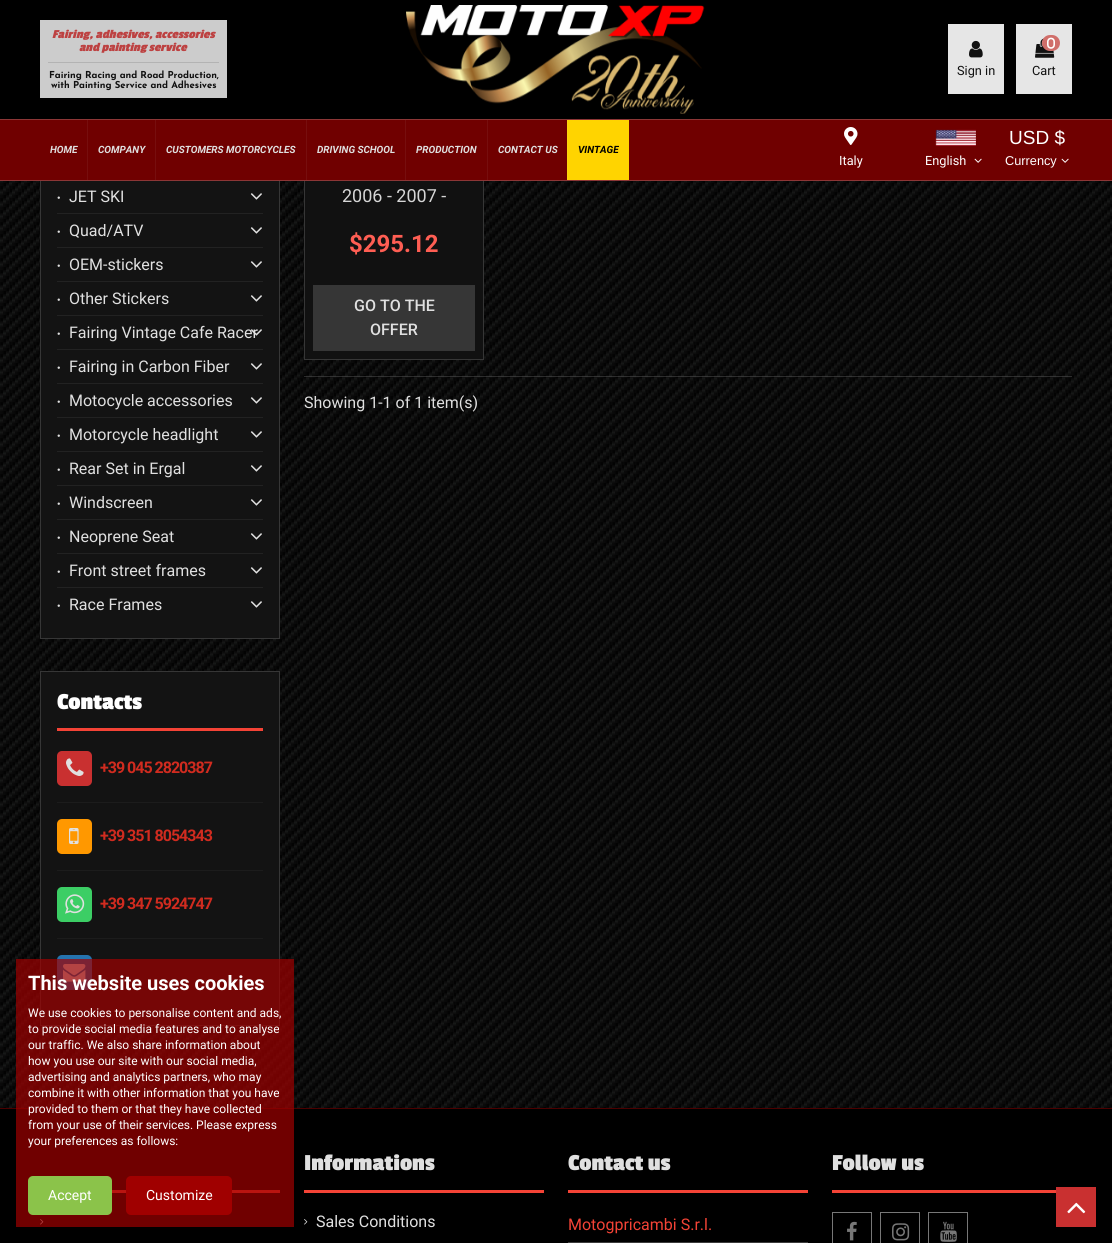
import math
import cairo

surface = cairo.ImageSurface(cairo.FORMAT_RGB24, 1112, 1243)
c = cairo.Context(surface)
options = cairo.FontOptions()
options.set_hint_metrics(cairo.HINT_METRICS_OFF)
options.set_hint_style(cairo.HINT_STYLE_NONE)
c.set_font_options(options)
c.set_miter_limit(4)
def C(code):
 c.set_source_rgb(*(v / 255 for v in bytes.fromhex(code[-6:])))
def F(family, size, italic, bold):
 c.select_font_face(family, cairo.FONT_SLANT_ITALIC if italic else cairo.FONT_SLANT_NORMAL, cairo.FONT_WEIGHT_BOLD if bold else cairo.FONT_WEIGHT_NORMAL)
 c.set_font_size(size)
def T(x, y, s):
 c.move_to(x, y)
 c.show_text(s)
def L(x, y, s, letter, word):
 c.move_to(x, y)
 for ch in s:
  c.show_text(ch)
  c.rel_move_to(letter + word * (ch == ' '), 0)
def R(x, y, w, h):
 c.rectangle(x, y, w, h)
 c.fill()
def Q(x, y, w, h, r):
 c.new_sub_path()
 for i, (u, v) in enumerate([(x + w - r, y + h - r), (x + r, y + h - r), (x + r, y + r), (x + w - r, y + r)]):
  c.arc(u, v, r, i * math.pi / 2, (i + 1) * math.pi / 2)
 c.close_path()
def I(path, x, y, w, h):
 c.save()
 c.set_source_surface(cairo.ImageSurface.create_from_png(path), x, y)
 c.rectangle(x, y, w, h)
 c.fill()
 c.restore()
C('ffffff')
c.paint()
I('1.png',0,181,1112,927)
C('131313')
R(41,181,238,457)
c.rectangle(40.5,-.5,239,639)
C('363636')
c.set_line_width(1)
c.stroke()
C('111111')
R(305,181,178,178)
c.rectangle(304.5,14.5,179,345)
C('363636')
c.stroke()
C('000000')
R(0,0,1112,119)
C('cccccc')
R(40,20,187,78)
F('Passion One',12.75,1,1)
C('bd4141')
T(52,38,'Fairing, adhesives, accessories')
T(79,51,'and painting service')
C('b3b3b3')
R(48,62,171,1)
F('Josefin Sans',9.6,0,1)
C('111111')
T(49,78,'Fairing Racing and Road Production,')
T(51,88,'with Painting Service and Adhesives')
I('2.png',406,5,299,109)
C('e6e6e6')
R(948,24,56,70)
I('3.png',969,40,14,18)
F('Roboto',12.75,0,0)
C('111111')
T(957,75,'Sign in')
C('e6e6e6')
R(1016,24,56,70)
I('5.png',1035,38,20,20)
C('d06e6a')
Q(1042,35,18,16,8)
c.fill()
I('4.png',1047,37,8,12)
C('111111')
T(1032,75,'Cart')
C('700000')
R(0,120,1112,60)
C('8c3636')
R(0,119,1112,1)
R(0,180,1112,1)
F('Roboto',10,1,1)
C('e0e0e0')
T(50,153,'HOME')
C('770e0e')
R(87,120,1,60)
C('e0e0e0')
T(98,153,'COMPANY')
C('770e0e')
R(155,120,1,60)
C('e0e0e0')
T(166,153,'CUSTOMERS MOTORCYCLES')
C('770e0e')
R(306,120,1,60)
C('e0e0e0')
T(317,153,'DRIVING SCHOOL')
C('770e0e')
R(405,120,1,60)
C('e0e0e0')
T(416,153,'PRODUCTION')
C('770e0e')
R(487,120,1,60)
C('e0e0e0')
T(498,153,'CONTACT US')
C('ffd400')
R(568,120,61,60)
C('fdd50e')
R(567,120,1,60)
C('000000')
T(578,153,'VINTAGE')
F('Liberation Sans',19,0,0)
C('ffffff')
T(1009,144,'USD $')
F('Liberation Sans',12.75,0,0)
T(1005,165,'Currency')
I('6.png',1061,158,8,5)
I('7.png',844,127,14,18)
F('Roboto',12.75,0,0)
T(839,165,'Italy')
I('8.png',935,129,41,17)
T(925,165,'English')
I('6.png',974,158,8,5)
C('222222')
R(57,213,206,1)
F('Liberation Serif',10,0,0)
C('e0e0e0')
T(57,201,'•')
F('Roboto',16,0,0)
T(69,202,'JET SKI')
I('9.png',250,193,12,7)
C('222222')
R(57,247,206,1)
F('Liberation Serif',10,0,0)
C('e0e0e0')
T(57,235,'•')
F('Roboto',16,0,0)
T(69,236,'Quad/ATV')
I('9.png',250,227,12,7)
C('222222')
R(57,281,206,1)
F('Liberation Serif',10,0,0)
C('e0e0e0')
T(57,269,'•')
F('Roboto',16,0,0)
T(69,270,'OEM-stickers')
I('9.png',250,261,12,7)
C('222222')
R(57,315,206,1)
F('Liberation Serif',10,0,0)
C('e0e0e0')
T(57,303,'•')
F('Roboto',16,0,0)
T(69,304,'Other Stickers')
I('9.png',250,295,12,7)
C('222222')
R(57,349,206,1)
F('Liberation Serif',10,0,0)
C('e0e0e0')
T(57,337,'•')
F('Roboto',16,0,0)
T(69,338,'Fairing Vintage Cafe Racer')
I('10.png',251,329,11,7)
C('222222')
R(57,383,206,1)
F('Liberation Serif',10,0,0)
C('e0e0e0')
T(57,371,'•')
F('Roboto',16,0,0)
T(69,372,'Fairing in Carbon Fiber')
I('9.png',250,363,12,7)
C('222222')
R(57,417,206,1)
F('Liberation Serif',10,0,0)
C('e0e0e0')
T(57,405,'•')
F('Roboto',16,0,0)
T(69,406,'Motocycle accessories')
I('9.png',250,397,12,7)
C('222222')
R(57,451,206,1)
F('Liberation Serif',10,0,0)
C('e0e0e0')
T(57,439,'•')
F('Roboto',16,0,0)
T(69,440,'Motorcycle headlight')
I('9.png',250,431,12,7)
C('222222')
R(57,485,206,1)
F('Liberation Serif',10,0,0)
C('e0e0e0')
T(57,473,'•')
F('Roboto',16,0,0)
T(69,474,'Rear Set in Ergal')
I('9.png',250,465,12,7)
C('222222')
R(57,519,206,1)
F('Liberation Serif',10,0,0)
C('e0e0e0')
T(57,507,'•')
F('Roboto',16,0,0)
T(69,508,'Windscreen')
I('9.png',250,499,12,7)
C('222222')
R(57,553,206,1)
F('Liberation Serif',10,0,0)
C('e0e0e0')
T(57,541,'•')
F('Roboto',16,0,0)
T(69,542,'Neoprene Seat')
I('9.png',250,533,12,7)
C('222222')
R(57,587,206,1)
F('Liberation Serif',10,0,0)
C('e0e0e0')
T(57,575,'•')
F('Roboto',16,0,0)
T(69,576,'Front street frames')
I('9.png',250,567,12,7)
F('Liberation Serif',10,0,0)
T(57,609,'•')
F('Roboto',16,0,0)
T(69,610,'Race Frames')
I('9.png',250,601,12,7)
C('131313')
c.rectangle(40.5,671.5,239,354)
c.fill_preserve()
C('363636')
c.stroke()
C('f44336')
R(57,728,206,3)
F('Passion One',24,0,1)
C('ffffff')
T(57,709,'Contacts')
C('c93030')
Q(57,751,35,35,5)
c.fill()
I('11.png',66,758,18,18)
F('Roboto',16,0,1)
C('d12b1f')
L(100,773,'+39 045 2820387',-1,0)
C('1c1c1c')
R(57,802,206,1)
C('ff9800')
Q(57,819,35,35,5)
c.fill()
I('12.png',69,828,10,16)
C('d12b1f')
L(100,841,'+39 351 8054343',-1,0)
C('1c1c1c')
R(57,870,206,1)
C('3cce65')
Q(57,887,35,35,5)
c.fill()
I('13.png',65,894,20,20)
C('d12b1f')
L(100,909,'+39 347 5924747',-1,0)
C('1c1c1c')
R(57,938,206,1)
C('2573ae')
Q(57,955,35,35,5)
c.fill()
I('14.png',63,964,23,18)
F('Roboto',18,0,0)
C('d6d6d6')
T(342,202,'2006 - 2007 -')
F('Roboto',24,0,1)
C('ff5e53')
T(349,252,'$295.12')
C('363636')
R(313,285,162,66)
F('Roboto Medium',16,0,0)
C('e0e0e0')
T(354,311,'GO TO THE')
T(370,335,'OFFER')
c.set_source_rgba(0.627,0.627,0.627,0.25)
R(304,376,768,1)
F('Roboto',16,0,0)
C('e0e0e0')
T(304,408,'Showing 1-1 of 1 item(s)')
C('000000')
R(0,1109,1112,134)
C('4b0000')
R(0,1108,1112,1)
C('f44336')
R(304,1190,240,3)
F('Passion One',24,0,1)
C('e0e0e0')
T(304,1170,'Informations')
I('15.png',304,1219,4,6)
F('Roboto',16,0,0)
T(316,1227,'Sales Conditions')
C('f44336')
R(568,1190,240,3)
F('Passion One',24,0,1)
C('e0e0e0')
T(568,1170,'Contact us')
C('3c3c3c')
R(568,1242,240,1)
F('Roboto',16,0,0)
C('f44336')
T(568,1230,'Motogpricambi S.r.l.')
R(832,1190,224,3)
F('Passion One',24,0,1)
C('e0e0e0')
T(832,1170,'Follow us')
c.rectangle(832.5,1212.5,39,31)
C('777777')
c.stroke()
I('16.png',847,1221,10,20)
c.rectangle(880.5,1212.5,39,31)
c.stroke()
I('17.png',892,1223,18,18)
c.rectangle(928.5,1212.5,39,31)
c.stroke()
I('18.png',940,1221,17,21)
C('f44336')
R(112,1190,168,3)
I('15.png',40,1219,4,6)
c.set_source_rgba(0.627,0,0,0.7)
R(16,959,278,268)
F('Roboto',20,0,1)
C('ffffff')
T(28,990,'This website uses cookies')
F('Roboto',12,0,0)
T(28,1017,'We use cookies to personalise content and ads,')
T(28,1033,'to provide social media features and to analyse')
T(28,1049,'our traffic. We also share information about')
T(28,1065,'how you use our site with our social media,')
T(28,1081,'advertising and analytics partners, who may')
T(28,1097,'combine it with other information that you have')
T(28,1113,'provided to them or that they have collected')
T(28,1129,'from your use of their services. Please express')
T(28,1145,'your preferences as follows:')
C('8bc34a')
Q(28,1176,84,39,5)
c.fill()
F('Roboto',14,0,0)
C('ffffff')
T(48,1200,'Accept')
C('a00000')
Q(126,1176,106,39,5)
c.fill()
C('ffffff')
T(146,1200,'Customize')
C('c93030')
R(1056,1187,40,40)
I('19.png',1067,1202,19,12)
surface.write_to_png('o.png')
